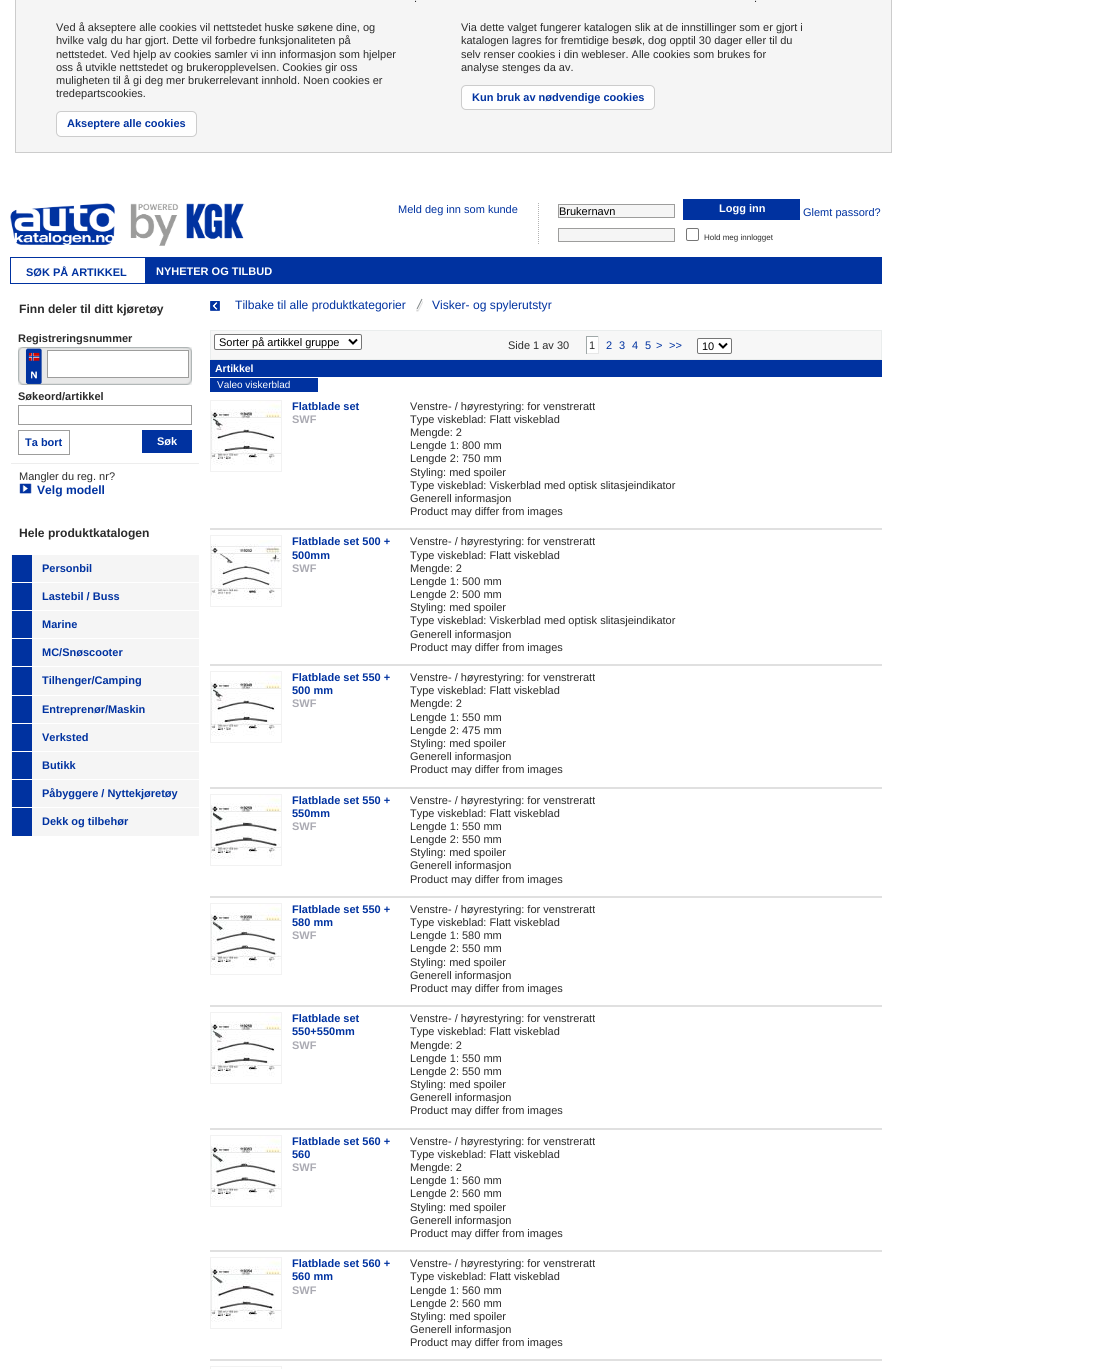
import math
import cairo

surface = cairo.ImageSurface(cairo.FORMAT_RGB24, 1107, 1369)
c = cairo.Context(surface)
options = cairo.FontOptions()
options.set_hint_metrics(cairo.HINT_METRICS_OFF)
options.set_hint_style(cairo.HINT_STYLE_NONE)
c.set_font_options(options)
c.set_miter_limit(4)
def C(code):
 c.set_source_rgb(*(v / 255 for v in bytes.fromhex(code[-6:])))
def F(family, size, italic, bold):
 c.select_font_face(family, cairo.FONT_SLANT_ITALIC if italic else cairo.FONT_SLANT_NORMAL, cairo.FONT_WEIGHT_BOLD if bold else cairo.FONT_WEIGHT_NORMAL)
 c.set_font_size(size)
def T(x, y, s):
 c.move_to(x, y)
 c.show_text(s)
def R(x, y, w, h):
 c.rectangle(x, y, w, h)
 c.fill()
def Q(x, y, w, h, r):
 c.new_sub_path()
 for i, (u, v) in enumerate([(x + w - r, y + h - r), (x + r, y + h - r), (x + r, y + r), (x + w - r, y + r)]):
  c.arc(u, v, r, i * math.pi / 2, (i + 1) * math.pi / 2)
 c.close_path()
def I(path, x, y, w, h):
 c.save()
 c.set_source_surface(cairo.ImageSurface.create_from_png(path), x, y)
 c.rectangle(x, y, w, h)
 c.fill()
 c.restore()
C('ffffff')
c.paint()
C('f5f5f5')
c.rectangle(15.5,-.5,876,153)
c.fill_preserve()
C('cccccc')
c.set_line_width(1)
c.stroke()
F('Liberation Sans',11,0,0)
C('2b2b2b')
T(414,2,'.')
T(754,2,'.')
T(56,31,'Ved å akseptere alle cookies vil nettstedet huske søkene dine, og')
T(56,44,'hvilke valg du har gjort. Dette vil forbedre funksjonaliteten på')
T(56,58,'nettstedet. Ved hjelp av cookies samler vi inn informasjon som hjelper')
T(56,71,'oss å utvikle nettstedet og brukeropplevelsen. Cookies gir oss')
T(56,84,'muligheten til å gi deg mer brukerrelevant innhold. Noen cookies er')
T(56,97,'tredepartscookies.')
C('fefefe')
Q(56.5,111.5,140,25,4.5)
c.fill_preserve()
C('cccccc')
c.stroke()
F('Liberation Sans',11,0,1)
C('0032a0')
T(67,127,'Akseptere alle cookies')
F('Liberation Sans',11,0,0)
C('2b2b2b')
T(461,31,'Via dette valget fungerer katalogen slik at de innstillinger som er gjort i')
T(461,44,'katalogen lagres for fremtidige besøk, dog opptil 30 dager eller til du')
T(461,58,'selv renser cookies i din webleser. Alle cookies som brukes for')
T(461,71,'analyse stenges da av.')
C('fefefe')
Q(461.5,85.5,193,24,4.5)
c.fill_preserve()
C('cccccc')
c.stroke()
F('Liberation Sans',11,0,1)
C('0032a0')
T(472,101,'Kun bruk av nødvendige cookies')
I('1.png',10,203,234,43)
F('Liberation Sans',11,0,0)
T(398,213,'Meld deg inn som kunde')
I('2.png',538,203,1,41)
C('f5f5f5')
c.rectangle(558.5,204.5,116,13)
c.fill_preserve()
C('9d9d9c')
c.stroke()
C('000000')
T(559,215,'Brukernavn')
C('0032a0')
R(683,199,117,21)
F('Liberation Sans',11,0,1)
C('ffffff')
T(719,212,'Logg inn')
F('Liberation Sans',11,0,0)
C('0032a0')
T(803,216,'Glemt passord?')
C('f5f5f5')
c.rectangle(558.5,228.5,116,13)
c.fill_preserve()
C('9d9d9c')
c.stroke()
Q(686.5,228.5,12,12,1.5)
C('767676')
c.stroke()
F('Liberation Sans',8,0,0)
C('2b2b2b')
T(704,240,'Hold meg innlogget')
C('0032a0')
R(146,257,736,27)
c.rectangle(10.5,257.5,135,26)
c.stroke()
F('Liberation Sans',11,0,1)
T(26,276,'SØK PÅ ARTIKKEL')
C('ffffff')
T(156,275,'NYHETER OG TILBUD')
F('Liberation Sans',12.1,0,1)
C('2b2b2b')
T(19,313,'Finn deler til ditt kjøretøy')
F('Liberation Sans',11,0,1)
T(18,342,'Registreringsnummer')
I('3.png',18,347,174,38)
C('ffffff')
c.rectangle(47.5,350.5,141,27)
c.fill_preserve()
C('9d9d9c')
c.stroke()
C('2b2b2b')
T(18,400,'Søkeord/artikkel')
c.rectangle(18.5,405.5,173,19)
C('9d9d9c')
c.stroke()
c.rectangle(18.5,430.5,51,24)
c.stroke()
C('0032a0')
T(25,446,'Ta bort')
R(142,430,50,23)
C('ffffff')
T(157,445,'Søk')
C('ededed')
R(11,463,188,1)
F('Liberation Sans',11,0,0)
C('2b2b2b')
T(19,480,'Mangler du reg. nr?')
I('4.png',19,483,13,11)
F('Liberation Sans',12.1,0,1)
C('0032a0')
T(37,494,'Velg modell')
C('2b2b2b')
T(19,537,'Hele produktkatalogen')
C('f5f5f5')
R(11,555,188,27)
C('0032a0')
R(12,555,20,27)
F('Liberation Sans',11,0,1)
T(42,572,'Personbil')
C('f5f5f5')
R(11,583,188,27)
C('0032a0')
R(12,583,20,27)
T(42,600,'Lastebil / Buss')
C('f5f5f5')
R(11,611,188,27)
C('0032a0')
R(12,611,20,27)
T(42,628,'Marine')
C('f5f5f5')
R(11,639,188,27)
C('0032a0')
R(12,639,20,27)
T(42,656,'MC/Snøscooter')
C('f5f5f5')
R(11,667,188,28)
C('0032a0')
R(12,667,20,28)
T(42,684,'Tilhenger/Camping')
C('f5f5f5')
R(11,696,188,27)
C('0032a0')
R(12,696,20,27)
T(42,713,'Entreprenør/Maskin')
C('f5f5f5')
R(11,724,188,27)
C('0032a0')
R(12,724,20,27)
T(42,741,'Verksted')
C('f5f5f5')
R(11,752,188,27)
C('0032a0')
R(12,752,20,27)
T(42,769,'Butikk')
C('f5f5f5')
R(11,780,188,27)
C('0032a0')
R(12,780,20,27)
T(42,797,'Påbyggere / Nyttekjøretøy')
C('f5f5f5')
R(11,808,188,28)
C('0032a0')
R(12,808,20,28)
T(42,825,'Dekk og tilbehør')
I('5.png',210,301,10,10)
F('Liberation Sans',12.1,0,0)
T(235,309,'Tilbake til alle produktkategorier')
I('6.png',416,298,7,14)
T(432,309,'Visker- og spylerutstyr')
C('f7f7f7')
c.rectangle(210.5,330.5,671,29)
c.fill_preserve()
C('eaeded')
c.stroke()
C('ffffff')
Q(214.5,334.5,147,15,1.5)
c.fill_preserve()
C('767676')
c.stroke()
c.new_path()
c.move_to(349,339.5)
c.line_to(353,343.5)
c.line_to(357,339.5)
C('000000')
c.set_line_width(2)
c.stroke()
F('Liberation Sans',11,0,0)
T(219,346,'Sorter på artikkel gruppe')
C('2b2b2b')
T(508,349,'Side 1 av 30')
C('ffffff')
R(587,337,11,16)
C('2b2b2b')
T(589,349,'1')
C('a0a8a8')
R(586,336,13,1)
C('e7e7e7')
R(598,336,1,18)
R(586,353,13,1)
C('a0a8a8')
R(586,336,1,18)
C('0032a0')
T(606,349,'2')
T(619,349,'3')
T(632,349,'4')
T(645,349,'5')
T(656,349,'>')
T(669,349,'>>')
C('ffffff')
Q(697.5,338.5,34,15,1.5)
c.fill_preserve()
C('767676')
c.set_line_width(1)
c.stroke()
c.new_path()
c.move_to(719,343.5)
c.line_to(723,347.5)
c.line_to(727,343.5)
C('000000')
c.set_line_width(2)
c.stroke()
T(702,350,'10')
C('0032a0')
R(210,360,672,17)
F('Liberation Sans',10.5,0,1)
C('ffffff')
T(215,372,'Artikkel')
C('e0e0e0')
R(210,528,672,2)
C('0032a0')
R(210,378,108,14)
F('Liberation Sans',10,0,0)
C('ffffff')
T(217,388,'Valeo viskerblad')
c.rectangle(210.5,400.5,71,71)
C('f2f2f2')
c.set_line_width(1)
c.stroke()
I('7.png',211,401,70,64)
F('Liberation Sans',11,0,1)
C('0032a0')
T(292,410,'Flatblade set')
C('aaaab2')
T(292,423,'SWF')
F('Liberation Sans',11,0,0)
C('2b2b2b')
T(410,410,'Venstre- / høyrestyring: for venstreratt')
T(410,423,'Type viskeblad: Flatt viskeblad')
T(410,436,'Mengde: 2')
T(410,449,'Lengde 1: 800 mm')
T(410,462,'Lengde 2: 750 mm')
T(410,476,'Styling: med spoiler')
T(410,489,'Type viskeblad: Viskerblad med optisk slitasjeindikator')
T(410,502,'Generell informasjon')
T(410,515,'Product may differ from images')
C('e0e0e0')
R(210,664,672,2)
c.rectangle(210.5,535.5,71,71)
C('f2f2f2')
c.stroke()
I('8.png',211,540,70,60)
F('Liberation Sans',11,0,1)
C('0032a0')
T(292,545,'Flatblade set 500 +')
T(292,559,'500mm')
C('aaaab2')
T(292,572,'SWF')
F('Liberation Sans',11,0,0)
C('2b2b2b')
T(410,545,'Venstre- / høyrestyring: for venstreratt')
T(410,559,'Type viskeblad: Flatt viskeblad')
T(410,572,'Mengde: 2')
T(410,585,'Lengde 1: 500 mm')
T(410,598,'Lengde 2: 500 mm')
T(410,611,'Styling: med spoiler')
T(410,624,'Type viskeblad: Viskerblad med optisk slitasjeindikator')
T(410,638,'Generell informasjon')
T(410,651,'Product may differ from images')
C('e0e0e0')
R(210,787,672,2)
c.rectangle(210.5,671.5,71,71)
C('f2f2f2')
c.stroke()
I('9.png',211,672,70,64)
F('Liberation Sans',11,0,1)
C('0032a0')
T(292,681,'Flatblade set 550 +')
T(292,694,'500 mm')
C('aaaab2')
T(292,707,'SWF')
F('Liberation Sans',11,0,0)
C('2b2b2b')
T(410,681,'Venstre- / høyrestyring: for venstreratt')
T(410,694,'Type viskeblad: Flatt viskeblad')
T(410,707,'Mengde: 2')
T(410,721,'Lengde 1: 550 mm')
T(410,734,'Lengde 2: 475 mm')
T(410,747,'Styling: med spoiler')
T(410,760,'Generell informasjon')
T(410,773,'Product may differ from images')
C('e0e0e0')
R(210,896,672,2)
c.rectangle(210.5,794.5,71,71)
C('f2f2f2')
c.stroke()
I('10.png',211,795,70,64)
F('Liberation Sans',11,0,1)
C('0032a0')
T(292,804,'Flatblade set 550 +')
T(292,817,'550mm')
C('aaaab2')
T(292,830,'SWF')
F('Liberation Sans',11,0,0)
C('2b2b2b')
T(410,804,'Venstre- / høyrestyring: for venstreratt')
T(410,817,'Type viskeblad: Flatt viskeblad')
T(410,830,'Lengde 1: 550 mm')
T(410,843,'Lengde 2: 550 mm')
T(410,856,'Styling: med spoiler')
T(410,869,'Generell informasjon')
T(410,883,'Product may differ from images')
C('e0e0e0')
R(210,1005,672,2)
c.rectangle(210.5,903.5,71,71)
C('f2f2f2')
c.stroke()
I('11.png',211,904,70,64)
F('Liberation Sans',11,0,1)
C('0032a0')
T(292,913,'Flatblade set 550 +')
T(292,926,'580 mm')
C('aaaab2')
T(292,939,'SWF')
F('Liberation Sans',11,0,0)
C('2b2b2b')
T(410,913,'Venstre- / høyrestyring: for venstreratt')
T(410,926,'Type viskeblad: Flatt viskeblad')
T(410,939,'Lengde 1: 580 mm')
T(410,952,'Lengde 2: 550 mm')
T(410,966,'Styling: med spoiler')
T(410,979,'Generell informasjon')
T(410,992,'Product may differ from images')
C('e0e0e0')
R(210,1128,672,2)
c.rectangle(210.5,1012.5,71,71)
C('f2f2f2')
c.stroke()
I('12.png',211,1013,70,64)
F('Liberation Sans',11,0,1)
C('0032a0')
T(292,1022,'Flatblade set')
T(292,1035,'550+550mm')
C('aaaab2')
T(292,1049,'SWF')
F('Liberation Sans',11,0,0)
C('2b2b2b')
T(410,1022,'Venstre- / høyrestyring: for venstreratt')
T(410,1035,'Type viskeblad: Flatt viskeblad')
T(410,1049,'Mengde: 2')
T(410,1062,'Lengde 1: 550 mm')
T(410,1075,'Lengde 2: 550 mm')
T(410,1088,'Styling: med spoiler')
T(410,1101,'Generell informasjon')
T(410,1114,'Product may differ from images')
C('e0e0e0')
R(210,1250,672,2)
c.rectangle(210.5,1135.5,71,71)
C('f2f2f2')
c.stroke()
I('13.png',211,1136,70,64)
F('Liberation Sans',11,0,1)
C('0032a0')
T(292,1145,'Flatblade set 560 +')
T(292,1158,'560')
C('aaaab2')
T(292,1171,'SWF')
F('Liberation Sans',11,0,0)
C('2b2b2b')
T(410,1145,'Venstre- / høyrestyring: for venstreratt')
T(410,1158,'Type viskeblad: Flatt viskeblad')
T(410,1171,'Mengde: 2')
T(410,1184,'Lengde 1: 560 mm')
T(410,1197,'Lengde 2: 560 mm')
T(410,1211,'Styling: med spoiler')
T(410,1224,'Generell informasjon')
T(410,1237,'Product may differ from images')
C('e0e0e0')
R(210,1359,672,2)
c.rectangle(210.5,1257.5,71,71)
C('f2f2f2')
c.stroke()
I('14.png',211,1258,70,64)
F('Liberation Sans',11,0,1)
C('0032a0')
T(292,1267,'Flatblade set 560 +')
T(292,1280,'560 mm')
C('aaaab2')
T(292,1294,'SWF')
F('Liberation Sans',11,0,0)
C('2b2b2b')
T(410,1267,'Venstre- / høyrestyring: for venstreratt')
T(410,1280,'Type viskeblad: Flatt viskeblad')
T(410,1294,'Lengde 1: 560 mm')
T(410,1307,'Lengde 2: 560 mm')
T(410,1320,'Styling: med spoiler')
T(410,1333,'Generell informasjon')
T(410,1346,'Product may differ from images')
c.rectangle(210.5,1366.5,71,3)
C('f2f2f2')
c.stroke()
surface.write_to_png('o.png')
